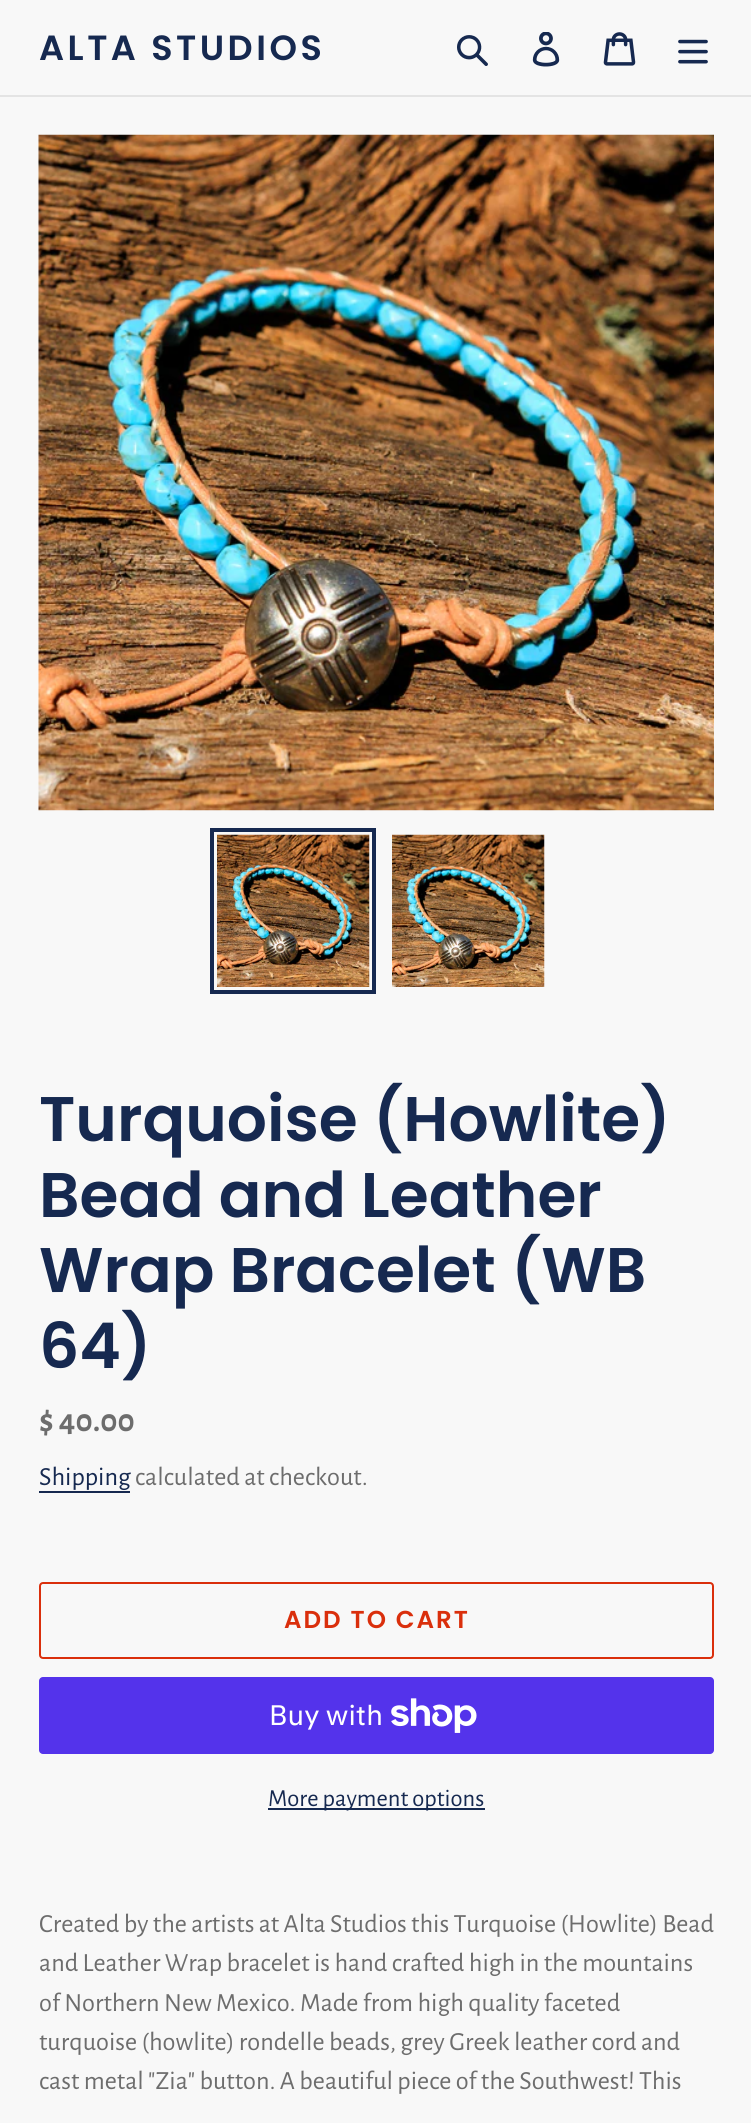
import math
import cairo

surface = cairo.ImageSurface(cairo.FORMAT_RGB24, 751, 2123)
c = cairo.Context(surface)
options = cairo.FontOptions()
options.set_hint_metrics(cairo.HINT_METRICS_OFF)
options.set_hint_style(cairo.HINT_STYLE_NONE)
c.set_font_options(options)
c.set_miter_limit(4)
def C(code):
 c.set_source_rgb(*(v / 255 for v in bytes.fromhex(code[-6:])))
def F(family, size, italic, bold):
 c.select_font_face(family, cairo.FONT_SLANT_ITALIC if italic else cairo.FONT_SLANT_NORMAL, cairo.FONT_WEIGHT_BOLD if bold else cairo.FONT_WEIGHT_NORMAL)
 c.set_font_size(size)
def T(x, y, s):
 c.move_to(x, y)
 c.show_text(s)
def L(x, y, s, letter, word):
 c.move_to(x, y)
 for ch in s:
  c.show_text(ch)
  c.rel_move_to(letter + word * (ch == ' '), 0)
def R(x, y, w, h):
 c.rectangle(x, y, w, h)
 c.fill()
def Q(x, y, w, h, r):
 c.new_sub_path()
 for i, (u, v) in enumerate([(x + w - r, y + h - r), (x + r, y + h - r), (x + r, y + r), (x + w - r, y + r)]):
  c.arc(u, v, r, i * math.pi / 2, (i + 1) * math.pi / 2)
 c.close_path()
def I(path, x, y, w, h):
 c.save()
 c.set_source_surface(cairo.ImageSurface.create_from_png(path), x, y)
 c.rectangle(x, y, w, h)
 c.fill()
 c.restore()
C('f8f8f8')
c.paint()
C('e4e4e4')
R(0,95,751,2)
F('Poppins SemiBold',35,0,0)
C('162950')
L(39,60,'ALTA STUDIOS',3.5,0)
I('1.png',457,35,31,31)
I('2.png',532,32,28,35)
I('3.png',603,32,33,34)
I('4.png',678,39,30,25)
I('5.png',38,134,676,677)
c.rectangle(212,830,162,162)
c.set_line_width(4)
c.stroke()
I('6.png',217,834,153,153)
I('7.png',392,834,153,153)
F('Poppins SemiBold',63,0,0)
T(39,1141,'Turquoise (Howlite)')
T(39,1217,'Bead and Leather')
T(39,1292,'Wrap Bracelet (WB')
T(39,1368,'64)')
F('Alegreya Sans',33,0,1)
C('6d6d6d')
T(39,1431,'$ 40.00')
F('Alegreya Sans',26.25,0,0)
C('162950')
T(39,1485,'Shipping')
R(39,1491,91,2)
C('6d6d6d')
T(135,1485,'calculated at checkout.')
Q(40,1583,673,75,3)
C('da2f0c')
c.set_line_width(2)
c.stroke()
F('Poppins SemiBold',24.5,0,0)
L(284,1628,'ADD TO CART',2,0)
C('5433eb')
Q(39,1677,675,77,4)
c.fill()
F('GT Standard',28,0,0)
C('ffffff')
T(269,1725,'Buy with')
I('8.png',391,1698,86,35)
C('162950')
R(268,1808,217,2)
F('Alegreya Sans',24.5,0,0)
T(268,1806,'More payment options')
F('Alegreya Sans',26.25,0,0)
C('6d6d6d')
T(39,1932,'Created by the artists at Alta Studios this Turquoise (Howlite) Bead')
T(39,1971,'and Leather Wrap bracelet is hand crafted high in the mountains')
T(39,2011,'of Northern New Mexico. Made from high quality faceted')
T(39,2050,'turquoise (howlite) rondelle beads, grey Greek leather cord and')
T(39,2089,'cast metal "Zia" button. A beautiful piece of the Southwest! This')
surface.write_to_png('o.png')
